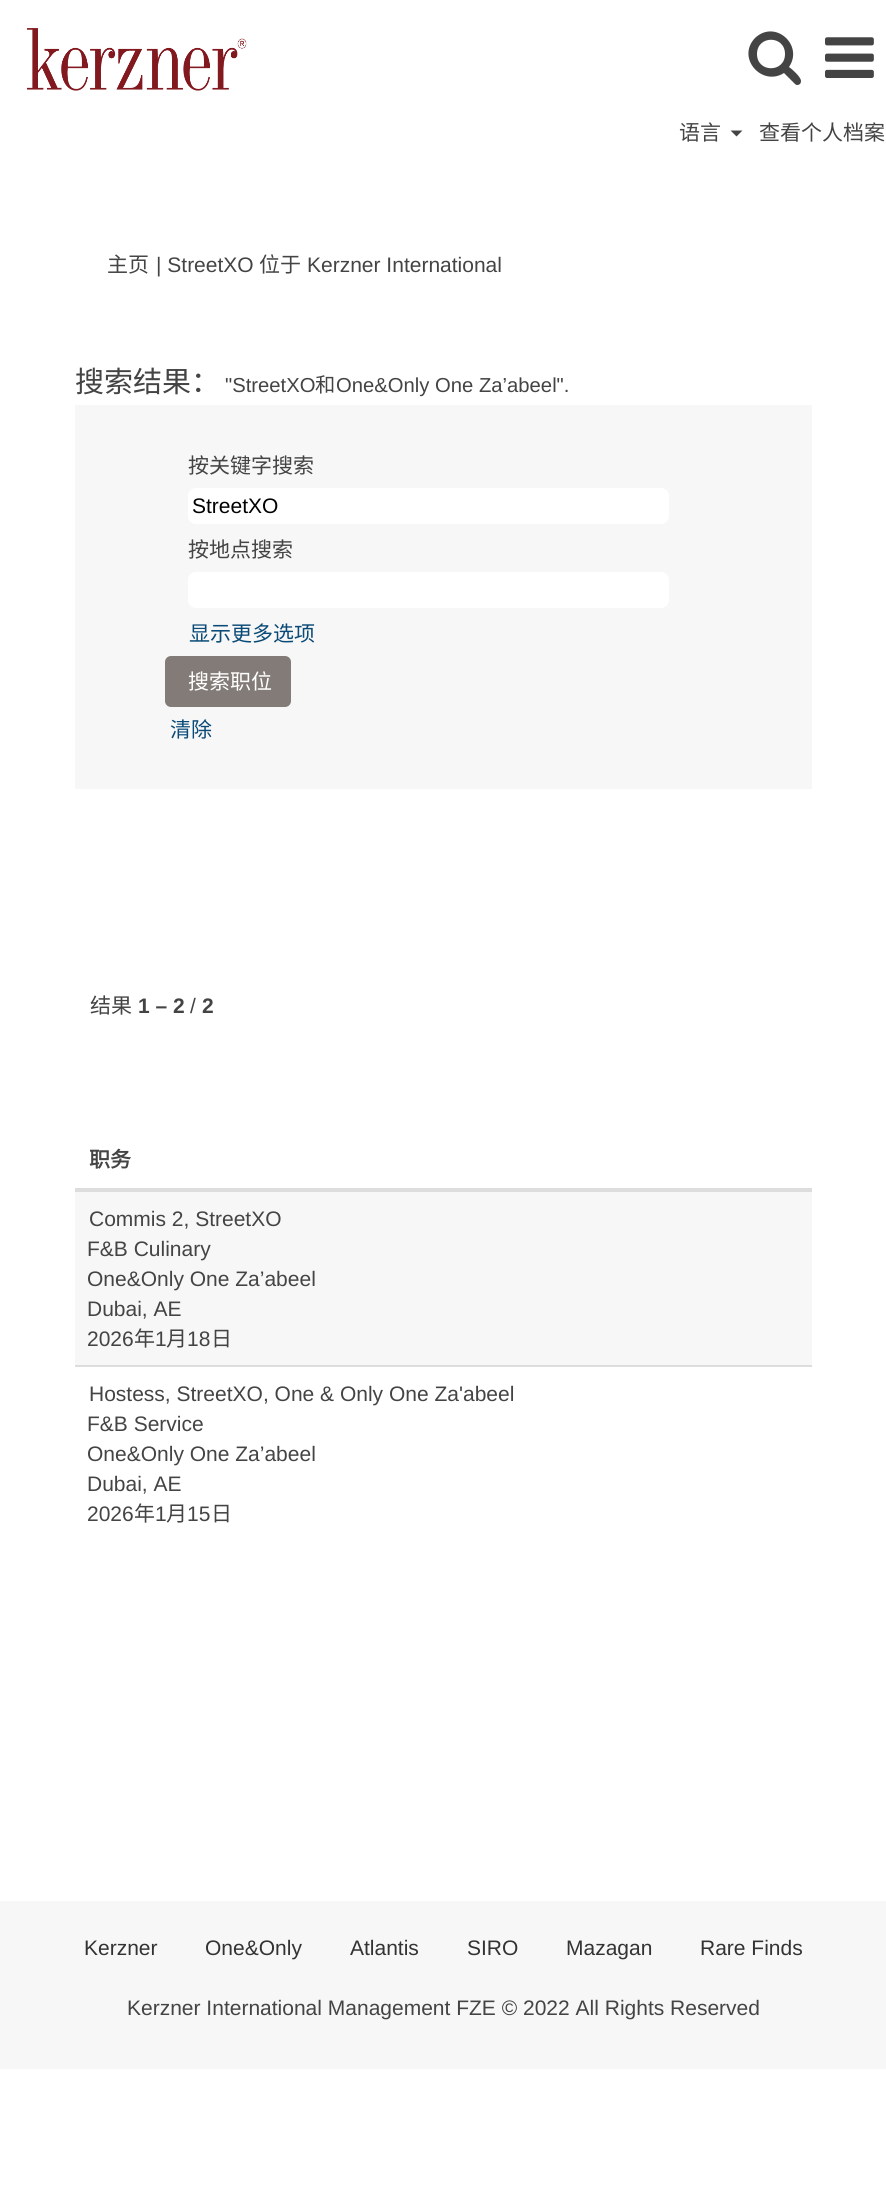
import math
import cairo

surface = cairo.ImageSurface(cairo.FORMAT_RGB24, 886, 2194)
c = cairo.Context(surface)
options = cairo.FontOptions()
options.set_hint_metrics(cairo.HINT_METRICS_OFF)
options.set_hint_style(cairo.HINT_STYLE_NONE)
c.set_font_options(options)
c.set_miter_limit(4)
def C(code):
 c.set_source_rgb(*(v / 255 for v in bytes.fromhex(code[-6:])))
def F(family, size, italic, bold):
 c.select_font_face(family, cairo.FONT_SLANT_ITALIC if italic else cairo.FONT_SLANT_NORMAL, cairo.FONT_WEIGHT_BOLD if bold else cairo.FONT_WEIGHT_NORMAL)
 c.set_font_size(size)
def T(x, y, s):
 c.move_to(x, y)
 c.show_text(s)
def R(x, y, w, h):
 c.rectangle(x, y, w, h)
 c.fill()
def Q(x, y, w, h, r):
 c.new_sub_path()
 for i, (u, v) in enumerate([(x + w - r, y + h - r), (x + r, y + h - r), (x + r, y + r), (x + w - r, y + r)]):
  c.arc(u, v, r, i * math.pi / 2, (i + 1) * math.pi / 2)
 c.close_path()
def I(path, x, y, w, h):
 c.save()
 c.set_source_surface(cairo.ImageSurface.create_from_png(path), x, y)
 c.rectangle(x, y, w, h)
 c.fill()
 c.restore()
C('ffffff')
c.paint()
I('1.png',27,28,220,63)
C('444444')
c.new_path()
c.move_to(785,54)
c.curve_to(785,73,757,73,757,54)
c.curve_to(757,35,785,35,785,54)
c.close_path()
c.move_to(801,81)
c.curve_to(801,77,792,69,789,67)
c.curve_to(804,45,775,19,755,38)
c.curve_to(736,58,762,87,784,73)
c.line_to(794,83)
c.curve_to(795,84,796,85,797,85)
c.curve_to(800,85,801,83,801,81)
c.close_path()
c.fill()
I('2.png',825,37,49,41)
F('Noto Sans CJK SC',21,0,0)
T(679,140,'语言')
c.new_path()
c.move_to(730.5,130.5)
c.line_to(742.5,130.5)
c.line_to(736.5,136.5)
c.close_path()
c.fill()
T(759,140,'查看个人档案')
T(107,272,'主页')
F('Liberation Sans',21,0,0)
T(156,272,'| StreetXO')
F('Noto Sans CJK SC',21,0,0)
T(259,272,'位于')
F('Liberation Sans',21,0,0)
T(307,272,'Kerzner International')
F('Noto Sans CJK SC',29,0,0)
T(75,392,'搜索结果：')
F('Liberation Sans',20.25,0,0)
T(225,392,'"StreetXO')
F('Noto Sans CJK SC',20.25,0,0)
T(315,392,'和')
F('Liberation Sans',20.25,0,0)
T(336,392,'One&Only One Za’abeel".')
C('f7f7f7')
R(75,405,737,384)
F('Noto Sans CJK SC',21,0,0)
C('444444')
T(188,473,'按关键字搜索')
C('ffffff')
Q(188,488,481,36,8)
c.fill()
F('Liberation Sans',21,0,0)
C('000000')
T(192,513,'StreetXO')
F('Noto Sans CJK SC',21,0,0)
C('444444')
T(188,557,'按地点搜索')
C('ffffff')
Q(188,572,481,36,8)
c.fill()
C('0a4a77')
T(189,641,'显示更多选项')
C('837b77')
Q(165,656,126,51,6)
c.fill()
C('ffffff')
T(188,689,'搜索职位')
C('0a4a77')
T(170,737,'清除')
C('444444')
T(90,1013,'结果')
F('Liberation Sans',21,0,1)
T(138,1013,'1 – 2')
F('Liberation Sans',21,0,0)
T(190,1013,'/')
F('Liberation Sans',21,0,1)
T(202,1013,'2')
F('Noto Sans CJK SC',21,0,1)
T(89,1167,'职务')
C('f7f7f7')
R(75,1192,737,173)
C('dddddd')
R(75,1188,737,4)
F('Liberation Sans',21,0,0)
C('444444')
T(89,1226,'Commis 2, StreetXO')
T(87,1256,'F&B Culinary')
T(87,1286,'One&Only One Za’abeel')
T(87,1316,'Dubai, AE')
T(87,1346,'2026')
F('Noto Sans CJK SC',21,0,0)
T(134,1346,'年')
F('Liberation Sans',21,0,0)
T(155,1346,'1')
F('Noto Sans CJK SC',21,0,0)
T(166,1346,'月')
F('Liberation Sans',21,0,0)
T(187,1346,'18')
F('Noto Sans CJK SC',21,0,0)
T(211,1346,'日')
C('dddddd')
R(75,1365,737,2)
F('Liberation Sans',21,0,0)
C('444444')
T(89,1401,'Hostess, StreetXO, One & Only One Za\'abeel')
T(87,1431,'F&B Service')
T(87,1461,'One&Only One Za’abeel')
T(87,1491,'Dubai, AE')
T(87,1521,'2026')
F('Noto Sans CJK SC',21,0,0)
T(134,1521,'年')
F('Liberation Sans',21,0,0)
T(155,1521,'1')
F('Noto Sans CJK SC',21,0,0)
T(166,1521,'月')
F('Liberation Sans',21,0,0)
T(187,1521,'15')
F('Noto Sans CJK SC',21,0,0)
T(211,1521,'日')
C('f7f7f7')
R(0,1901,886,168)
F('Liberation Sans',21,0,0)
C('333333')
T(84,1955,'Kerzner')
T(205,1955,'One&Only')
T(350,1955,'Atlantis')
T(467,1955,'SIRO')
T(566,1955,'Mazagan')
T(700,1955,'Rare Finds')
C('444444')
T(127,2015,'Kerzner International Management FZE © 2022 All Rights Reserved')
surface.write_to_png('o.png')
